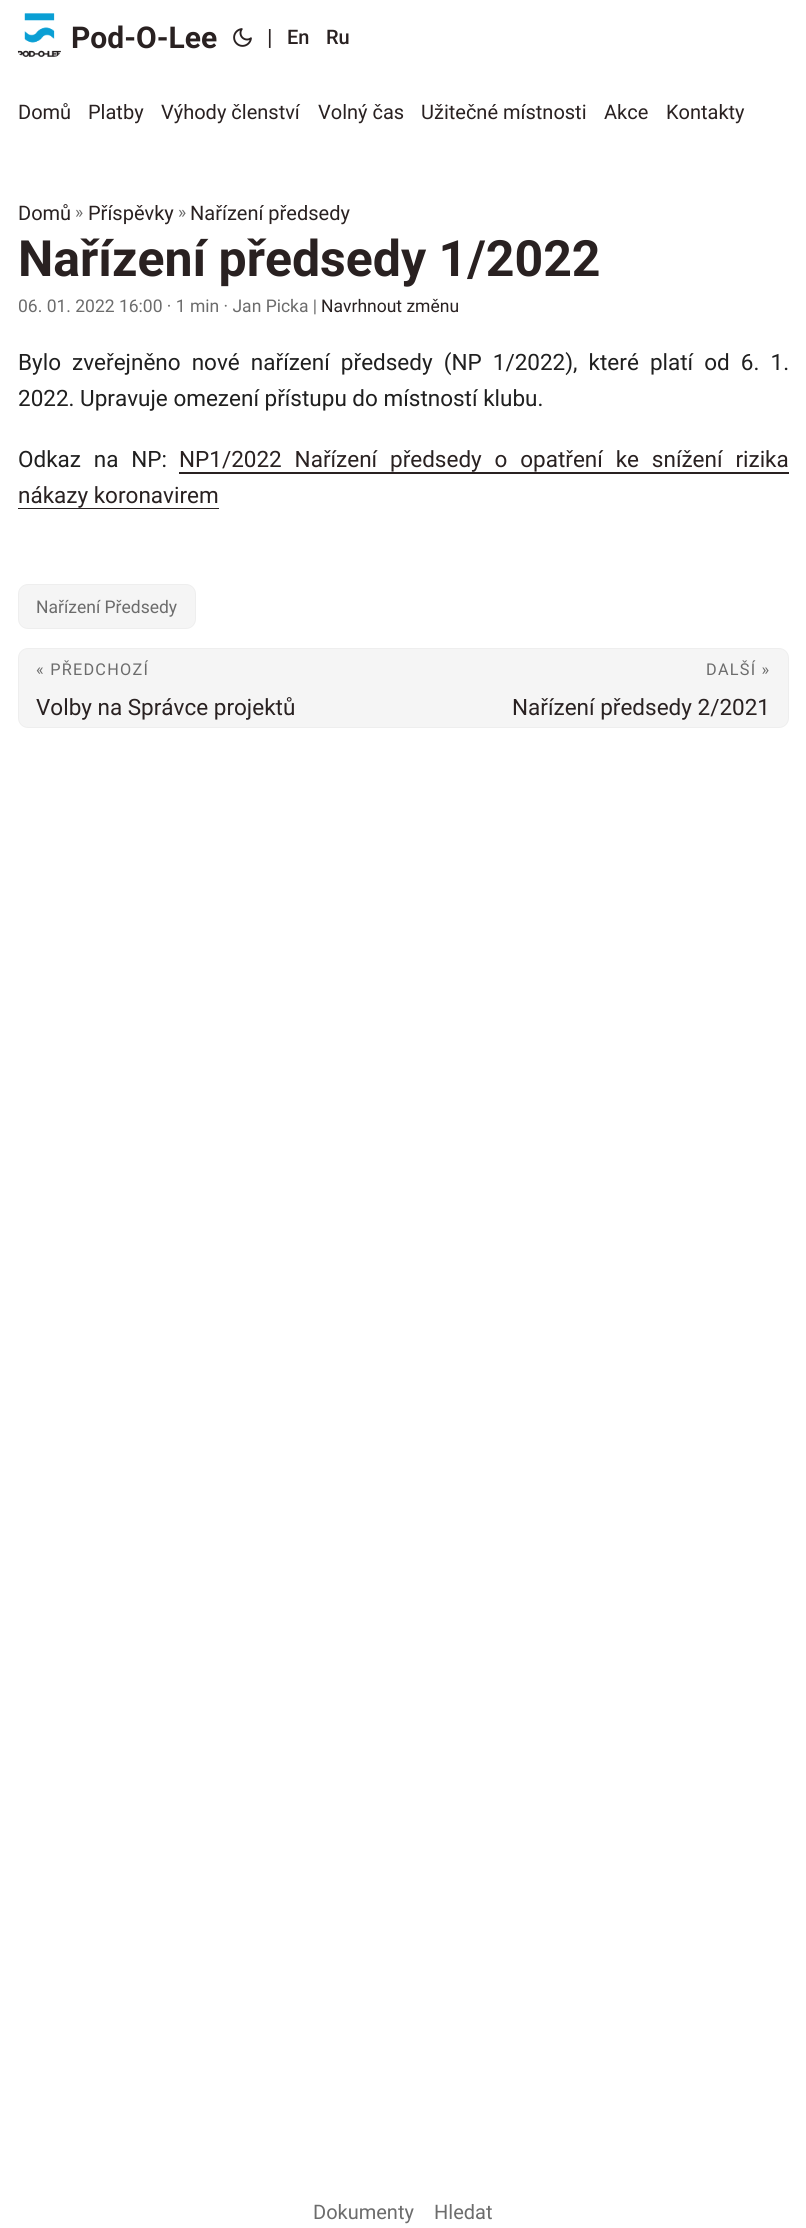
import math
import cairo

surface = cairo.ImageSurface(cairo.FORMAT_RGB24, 806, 2228)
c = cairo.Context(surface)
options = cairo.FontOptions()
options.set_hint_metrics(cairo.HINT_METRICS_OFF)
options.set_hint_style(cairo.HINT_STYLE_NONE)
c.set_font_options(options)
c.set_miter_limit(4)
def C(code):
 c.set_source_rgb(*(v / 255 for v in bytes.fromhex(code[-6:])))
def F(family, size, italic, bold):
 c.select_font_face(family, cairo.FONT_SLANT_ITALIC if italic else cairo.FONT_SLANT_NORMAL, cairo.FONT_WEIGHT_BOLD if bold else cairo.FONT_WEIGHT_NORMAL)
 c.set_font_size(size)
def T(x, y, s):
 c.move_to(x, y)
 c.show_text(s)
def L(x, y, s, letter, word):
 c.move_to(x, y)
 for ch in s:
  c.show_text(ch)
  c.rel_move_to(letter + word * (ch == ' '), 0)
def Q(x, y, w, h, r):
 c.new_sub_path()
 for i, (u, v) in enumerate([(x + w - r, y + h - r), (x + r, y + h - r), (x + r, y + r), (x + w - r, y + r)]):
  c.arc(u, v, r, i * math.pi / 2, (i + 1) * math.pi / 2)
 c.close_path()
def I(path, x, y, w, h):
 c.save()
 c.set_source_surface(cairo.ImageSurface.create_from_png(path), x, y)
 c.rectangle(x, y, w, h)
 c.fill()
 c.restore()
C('ffffff')
c.paint()
I('1.png',17,13,44,44)
F('Roboto',30,0,1)
C('292121')
T(71,48,'Pod-O-Lee')
I('2.png',233,28,19,19)
F('Roboto',22.5,0,0)
T(267,45,'|')
F('Roboto Medium',20,0,0)
T(287,44,'En')
T(326,44,'Ru')
F('Roboto',20,0,0)
T(18,119,'Domů')
T(88,119,'Platby')
T(161,119,'Výhody členství')
T(318,119,'Volný čas')
T(421,119,'Užitečné místnosti')
T(604,119,'Akce')
T(666,119,'Kontakty')
T(18,220,'Domů')
F('Roboto',17.5,0,0)
C('6c6c6c')
T(75,218,'»')
F('Roboto',20,0,0)
C('292121')
T(88,220,'Příspěvky')
F('Roboto',17.5,0,0)
C('6c6c6c')
T(178,218,'»')
F('Roboto',20,0,0)
C('292121')
T(190,220,'Nařízení předsedy')
F('Roboto',50,0,1)
T(18,276,'Nařízení předsedy 1/2022')
F('Roboto',17.5,0,0)
C('6c6c6c')
T(18,312,'06. 01. 2022 16:00 · 1 min · Jan Picka |')
C('292121')
T(321,312,'Navrhnout změnu')
F('Roboto',22.5,0,0)
C('1f1f1f')
L(18,370,'Bylo zveřejněno nové nařízení předsedy (NP 1/2022), které platí od 6. 1.',0,5.5)
T(18,406,'2022. Upravuje omezení přístupu do místností klubu.')
L(18,467,'Odkaz na NP:',0,7.25)
C('292121')
L(179,467,'NP1/2022 Nařízení předsedy o opatření ke snížení rizika',0,7.25)
c.new_path()
c.move_to(179,472)
c.line_to(179,474)
c.line_to(789,474)
c.line_to(789,448)
c.line_to(789,472)
c.close_path()
c.fill()
T(18,503,'nákazy koronavirem')
c.new_path()
c.move_to(18,508)
c.line_to(18,509)
c.line_to(219,509)
c.line_to(219,483)
c.line_to(219,508)
c.close_path()
c.fill()
C('f5f5f5')
Q(18.5,584.5,177,44,9.5)
c.fill_preserve()
C('eeeeee')
c.set_line_width(1)
c.stroke()
F('Roboto',17.5,0,0)
C('6c6c6c')
T(36,613,'Nařízení Předsedy')
C('f5f5f5')
Q(18.5,648.5,770,79,9.5)
c.fill_preserve()
C('eeeeee')
c.stroke()
F('Roboto',16.25,0,0)
C('6c6c6c')
L(36,675,'« PŘEDCHOZÍ',1.25,0)
F('Roboto',22.5,0,0)
C('292121')
T(36,715,'Volby na Správce projektů')
F('Roboto',16.25,0,0)
C('6c6c6c')
L(706,675,'DALŠÍ »',1.25,0)
F('Roboto',22.5,0,0)
C('292121')
T(512,715,'Nařízení předsedy 2/2021')
F('Roboto',20,0,0)
C('6c6c6c')
T(313,2219,'Dokumenty')
T(434,2219,'Hledat')
surface.write_to_png('o.png')
